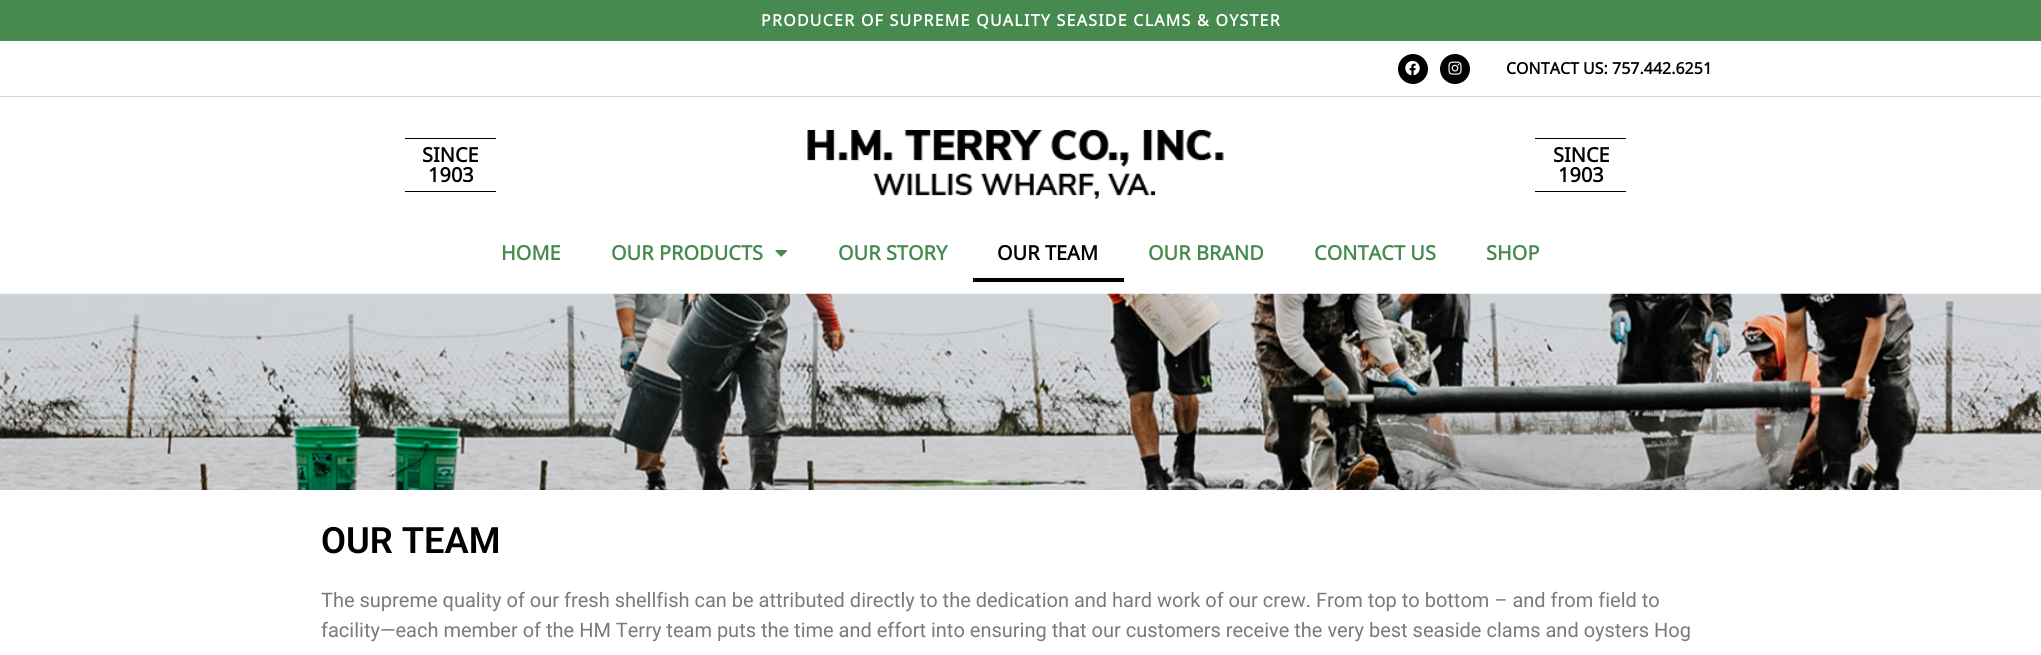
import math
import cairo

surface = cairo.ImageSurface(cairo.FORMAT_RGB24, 2041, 655)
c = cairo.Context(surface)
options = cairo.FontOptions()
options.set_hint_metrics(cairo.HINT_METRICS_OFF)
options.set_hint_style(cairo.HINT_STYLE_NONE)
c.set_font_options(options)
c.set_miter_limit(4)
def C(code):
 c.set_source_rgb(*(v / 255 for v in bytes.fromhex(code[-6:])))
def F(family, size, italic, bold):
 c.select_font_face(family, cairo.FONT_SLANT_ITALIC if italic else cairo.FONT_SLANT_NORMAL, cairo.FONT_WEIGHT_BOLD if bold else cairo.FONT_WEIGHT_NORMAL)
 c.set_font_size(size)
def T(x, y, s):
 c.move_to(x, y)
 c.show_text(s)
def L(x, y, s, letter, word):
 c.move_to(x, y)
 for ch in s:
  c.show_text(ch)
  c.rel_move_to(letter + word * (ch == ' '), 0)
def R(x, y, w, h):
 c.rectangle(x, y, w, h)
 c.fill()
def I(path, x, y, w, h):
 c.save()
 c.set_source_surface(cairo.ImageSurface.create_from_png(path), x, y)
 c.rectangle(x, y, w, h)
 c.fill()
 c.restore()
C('ffffff')
c.paint()
C('468a4f')
R(0,0,2041,41)
F('Noto Sans Hanunoo',16,0,1)
C('ffffff')
L(761,26,'PRODUCER OF SUPREME QUALITY SEASIDE CLAMS & OYSTER',1.25,0)
C('d5d5d5')
R(0,96,2041,1)
C('000000')
c.new_path()
c.arc(1413,69,15,0,2 * math.pi)
c.fill()
I('1.png',1405,60,15,16)
c.arc(1455,69,15,0,2 * math.pi)
c.fill()
I('2.png',1448,61,14,14)
T(1506,74,'CONTACT US: 757.442.6251')
R(405,138,91,1)
F('Noto Sans Hanunoo',20,0,1)
T(422,162,'SINCE')
T(428,182,'1903')
R(405,191,91,1)
I('3.png',807,130,417,69)
R(1535,138,91,1)
T(1553,162,'SINCE')
T(1558,182,'1903')
R(1535,191,91,1)
C('468a4f')
T(501,260,'HOME')
T(611,260,'OUR PRODUCTS')
I('4.png',775,250,12,7)
T(838,260,'OUR STORY')
C('000000')
T(997,260,'OUR TEAM')
R(973,278,151,4)
C('468a4f')
T(1148,260,'OUR BRAND')
T(1314,260,'CONTACT US')
T(1486,260,'SHOP')
I('5.png',0,293,2041,197)
F('Roboto SemiBold',36.25,0,0)
C('000000')
T(321,553,'OUR TEAM')
F('Roboto',20,0,0)
C('7a7a7a')
T(321,607,'The supreme quality of our fresh shellfish can be attributed directly to the dedication and hard work of our crew. From top to bottom – and from field to')
T(321,637,'facility—each member of the HM Terry team puts the time and effort into ensuring that our customers receive the very best seaside clams and oysters Hog')
surface.write_to_png('o.png')
